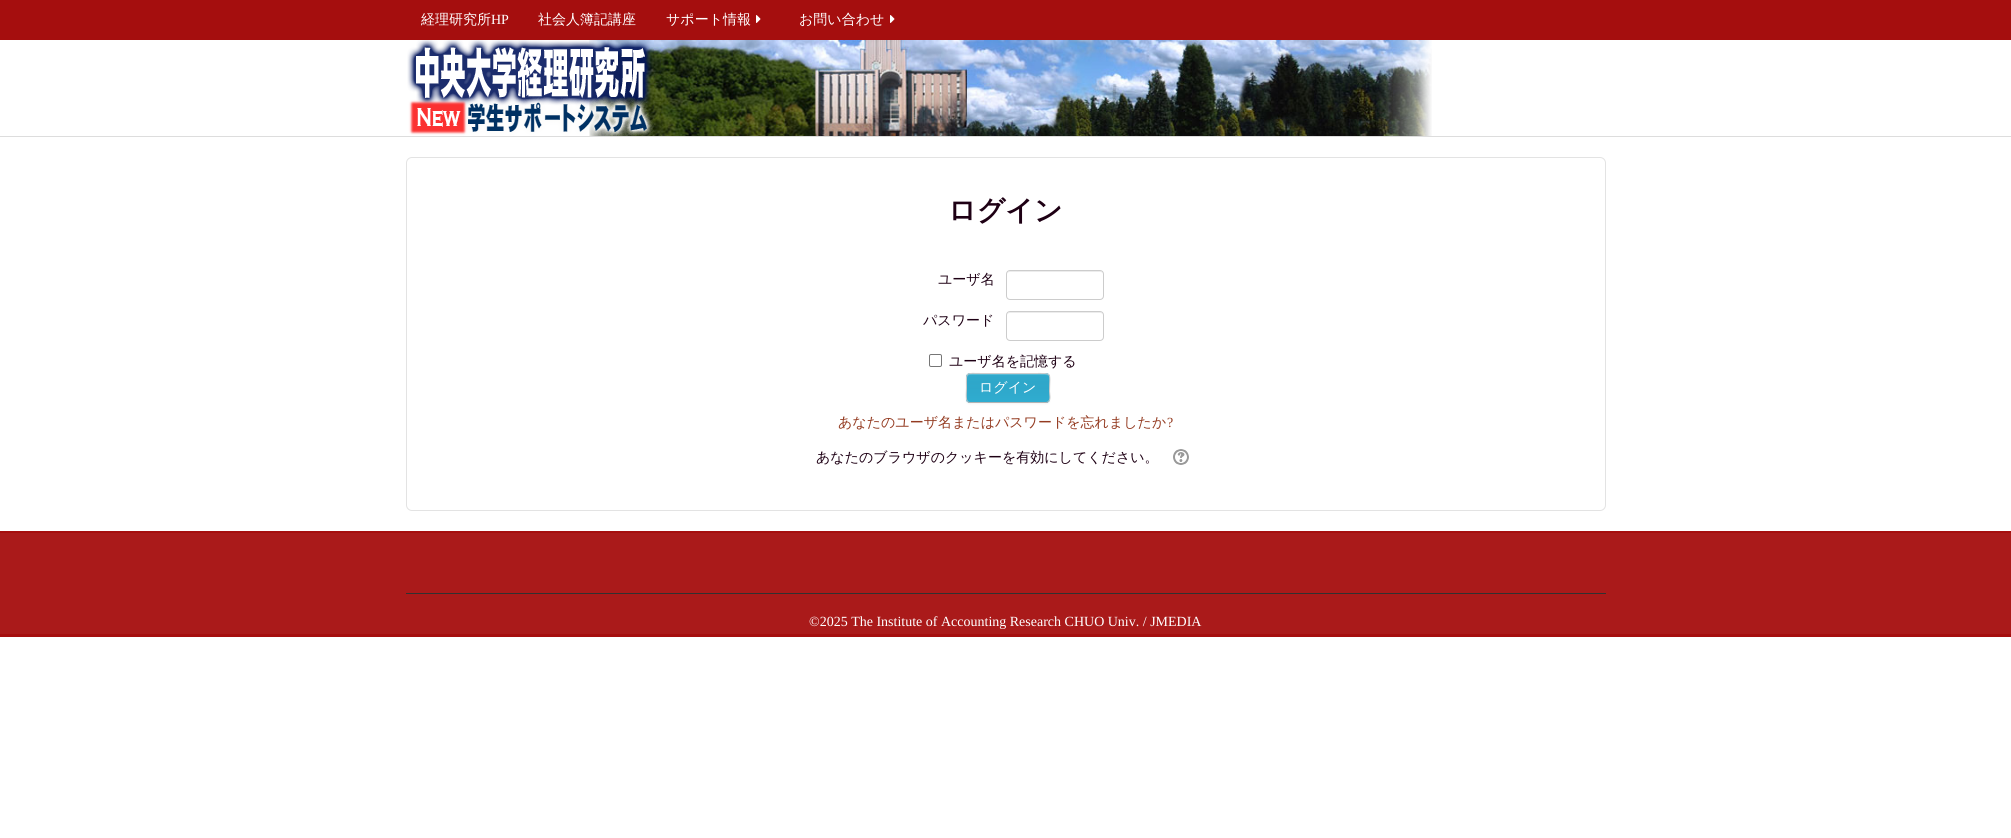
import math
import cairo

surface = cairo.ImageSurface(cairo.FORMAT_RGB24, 2011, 838)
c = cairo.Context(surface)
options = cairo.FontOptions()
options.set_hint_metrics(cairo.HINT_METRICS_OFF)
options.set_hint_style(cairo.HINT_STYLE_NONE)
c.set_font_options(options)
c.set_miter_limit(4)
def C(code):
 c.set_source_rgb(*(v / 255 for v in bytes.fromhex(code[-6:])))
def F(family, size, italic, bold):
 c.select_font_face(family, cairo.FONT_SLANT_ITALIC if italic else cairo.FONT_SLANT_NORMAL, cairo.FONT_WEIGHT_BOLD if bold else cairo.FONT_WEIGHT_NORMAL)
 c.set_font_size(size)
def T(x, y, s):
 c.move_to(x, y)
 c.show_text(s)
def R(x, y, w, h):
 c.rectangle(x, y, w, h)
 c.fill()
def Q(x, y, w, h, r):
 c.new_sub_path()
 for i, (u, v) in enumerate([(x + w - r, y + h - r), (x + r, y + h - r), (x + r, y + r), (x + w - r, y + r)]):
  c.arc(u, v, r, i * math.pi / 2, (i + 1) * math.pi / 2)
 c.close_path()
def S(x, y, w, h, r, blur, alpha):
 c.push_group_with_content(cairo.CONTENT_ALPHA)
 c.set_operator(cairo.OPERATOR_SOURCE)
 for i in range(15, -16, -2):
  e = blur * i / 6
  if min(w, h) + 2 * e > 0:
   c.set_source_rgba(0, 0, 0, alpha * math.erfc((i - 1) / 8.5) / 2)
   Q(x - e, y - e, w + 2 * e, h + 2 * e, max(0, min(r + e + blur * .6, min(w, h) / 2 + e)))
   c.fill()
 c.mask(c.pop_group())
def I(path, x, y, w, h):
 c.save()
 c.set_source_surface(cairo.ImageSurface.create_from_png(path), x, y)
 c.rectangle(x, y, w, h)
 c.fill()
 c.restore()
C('ffffff')
c.paint()
C('a50e0e')
R(0,0,2011,40)
F('WenQuanYi Zen Hei Medium',14,0,0)
C('ffffff')
T(421,24,'経理研究所')
F('Liberation Serif',14,0,0)
T(491,24,'HP')
F('WenQuanYi Zen Hei Medium',14,0,0)
T(538,24,'社会人簿記講座')
T(666,24,'サポート情報')
I('1.png',756,15,5,8)
T(799,24,'お問い合わせ')
I('1.png',890,15,5,8)
I('2.png',589,40,843,96)
C('dddddd')
R(0,136,2011,1)
I('3.png',407,40,246,96)
Q(406.5,157.5,1199,353,5.5)
C('e3e3e3')
c.set_line_width(1)
c.stroke()
F('WenQuanYi Zen Hei',28,0,1)
C('1e0014')
T(948,220,'ログイン')
F('WenQuanYi Zen Hei Medium',14,0,0)
T(938,284,'ユーザ名')
C('ececec')
c.new_path()
c.move_to(1010,272)
c.line_to(1100,272)
c.curve_to(1102,272,1103,273,1103,275)
c.curve_to(1103,267,1088,271,1085,271)
c.line_to(1025,271)
c.curve_to(1022,271,1007,267,1007,275)
c.curve_to(1007,273,1008,272,1010,272)
c.close_path()
c.fill()
Q(1006.5,270.5,97,29,3.5)
C('cccccc')
c.stroke()
C('1e0014')
T(923,325,'パスワード')
C('ececec')
c.new_path()
c.move_to(1010,313)
c.line_to(1100,313)
c.curve_to(1102,313,1103,314,1103,316)
c.curve_to(1103,308,1088,312,1085,312)
c.line_to(1025,312)
c.curve_to(1022,312,1007,308,1007,316)
c.curve_to(1007,314,1008,313,1010,313)
c.close_path()
c.fill()
Q(1006.5,311.5,97,29,3.5)
C('cccccc')
c.stroke()
Q(929.5,354.5,12,12,1.5)
C('767676')
c.stroke()
C('1e0014')
T(949,366,'ユーザ名を記憶する')
C('000000')
S(966,374,84,30,4,1,.05)
C('30add1')
Q(966,373,84,30,4)
c.fill()
c.save()
Q(966,373,84,30,4)
c.clip()
gradient = cairo.LinearGradient(1008,402,1008,374)
gradient.add_color_stop_rgba(0,0.188,0.678,0.82,1)
gradient.add_color_stop_rgba(1,0.169,0.612,0.737,.25)
c.set_source(gradient)
R(966,374,84,28)
c.restore()
c.set_source_rgba(1,1,1,0.2)
c.new_path()
c.move_to(970,375)
c.line_to(1046,375)
c.curve_to(1048,375,1049,376,1049,378)
c.curve_to(1049,371,1037,374,1033,374)
c.line_to(983,374)
c.curve_to(979,374,967,371,967,378)
c.curve_to(967,376,968,375,970,375)
c.close_path()
c.fill()
c.new_path()
c.move_to(1048.5,401.5)
c.line_to(1046.5,402.5)
c.line_to(969.5,402.5)
c.line_to(967.5,401.5)
C('b3b3b3')
c.stroke()
c.new_path()
c.move_to(967.5,401.5)
c.curve_to(965.5,399.5,966.5,391,966.5,388)
c.curve_to(966.5,371,964.5,373.5,982.5,373.5)
c.line_to(1033.5,373.5)
c.curve_to(1053.5,373.5,1049.5,371.5,1049.5,391.5)
c.curve_to(1049.5,394.5,1051,399,1048.5,401.5)
C('cccccc')
c.stroke()
C('ffffff')
T(979,392,'ログイン')
C('943b21')
T(838,427,'あなたのユーザ名またはパスワードを忘れましたか')
F('Liberation Serif',14,0,0)
T(1167,427,'?')
F('WenQuanYi Zen Hei Medium',14,0,0)
C('1e0014')
T(816,462,'あなたのブラウザのクッキーを有効にしてください。')
I('4.png',1173,449,16,16)
C('aa1a1a')
R(0,533,2011,101)
C('a50e0e')
R(0,531,2011,2)
R(0,634,2011,3)
C('313131')
R(406,593,1200,1)
F('Liberation Serif',14,0,0)
C('ffffff')
T(809,626,'©2025 The Institute of Accounting Research CHUO Univ. / JMEDIA')
surface.write_to_png('o.png')
